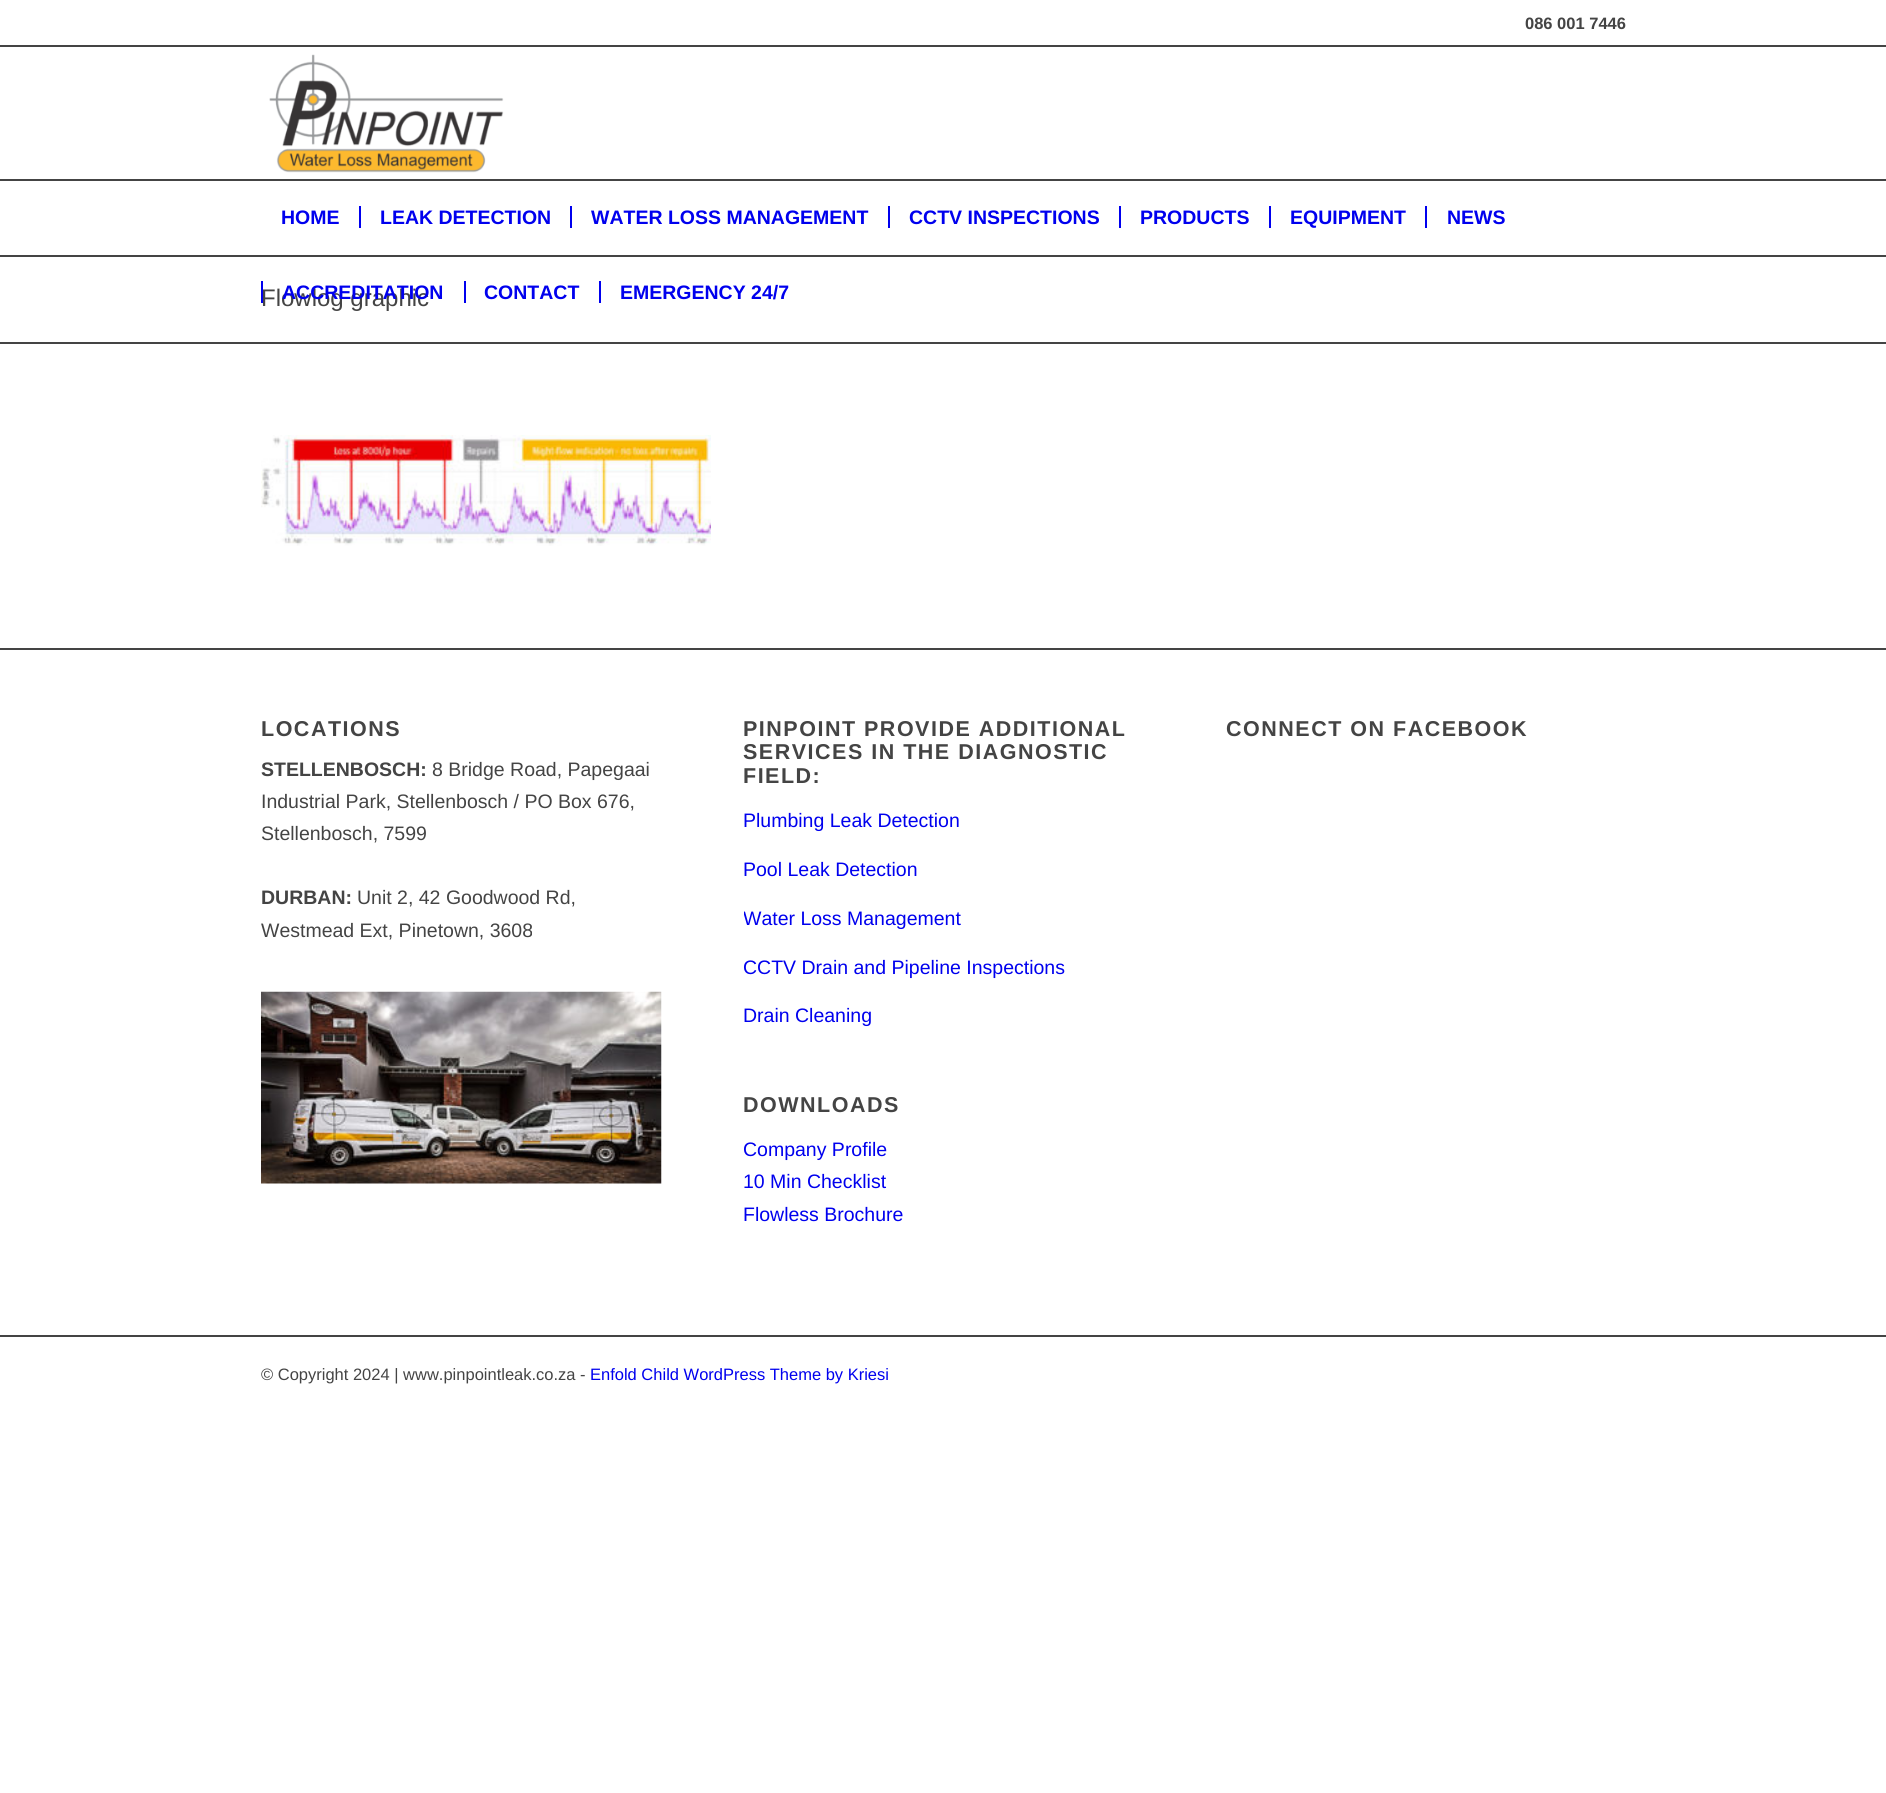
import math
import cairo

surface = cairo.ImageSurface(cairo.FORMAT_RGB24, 1886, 1793)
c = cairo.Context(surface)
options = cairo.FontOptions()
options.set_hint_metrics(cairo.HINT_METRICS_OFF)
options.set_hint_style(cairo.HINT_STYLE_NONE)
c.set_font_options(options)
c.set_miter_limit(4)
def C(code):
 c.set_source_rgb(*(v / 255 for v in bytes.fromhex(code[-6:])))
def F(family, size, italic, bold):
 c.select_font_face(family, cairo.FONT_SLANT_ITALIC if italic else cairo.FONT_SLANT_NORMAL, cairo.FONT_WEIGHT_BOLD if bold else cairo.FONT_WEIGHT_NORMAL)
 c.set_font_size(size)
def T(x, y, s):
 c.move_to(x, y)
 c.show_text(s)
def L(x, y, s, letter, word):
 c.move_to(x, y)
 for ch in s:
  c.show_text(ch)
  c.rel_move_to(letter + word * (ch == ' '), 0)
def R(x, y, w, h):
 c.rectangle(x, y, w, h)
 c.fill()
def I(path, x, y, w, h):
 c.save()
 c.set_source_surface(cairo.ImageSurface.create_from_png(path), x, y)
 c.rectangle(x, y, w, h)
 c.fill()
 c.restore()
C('ffffff')
c.paint()
F('Liberation Sans',16.5,0,1)
C('444444')
T(1525,29,'086 001 7446')
R(0,45,1886,2)
I('1.png',269,54,235,119)
R(0,179,1886,2)
F('Liberation Sans',19.5,0,1)
C('0000ee')
T(281,224,'HOME')
T(380,224,'LEAK DETECTION')
R(359,206,2,22)
T(591,224,'WATER LOSS MANAGEMENT')
R(570,206,2,22)
T(909,224,'CCTV INSPECTIONS')
R(888,206,2,22)
T(1140,224,'PRODUCTS')
R(1119,206,2,22)
T(1290,224,'EQUIPMENT')
R(1269,206,2,22)
T(1447,224,'NEWS')
R(1425,206,2,22)
F('Liberation Sans',24,0,0)
C('444444')
T(261,306,'Flowlog graphic')
F('Liberation Sans',19.5,0,1)
C('0000ee')
T(282,299,'ACCREDITATION')
R(261,281,2,22)
T(484,299,'CONTACT')
R(464,281,2,22)
T(620,299,'EMERGENCY 24/7')
R(599,281,2,22)
C('444444')
R(0,255,1886,2)
R(0,342,1886,2)
I('2.png',261,435,450,111)
R(0,648,1886,2)
F('Liberation Sans',21.5,0,1)
L(261,736,'LOCATIONS',1.5,0)
F('Liberation Sans',19.5,0,1)
T(261,776,'STELLENBOSCH:')
F('Liberation Sans',19.5,0,0)
T(432,776,'8 Bridge Road, Papegaai')
T(261,808,'Industrial Park, Stellenbosch / PO Box 676,')
T(261,840,'Stellenbosch, 7599')
F('Liberation Sans',19.5,0,1)
T(261,904,'DURBAN:')
F('Liberation Sans',19.5,0,0)
T(357,904,'Unit 2, 42 Goodwood Rd,')
T(261,937,'Westmead Ext, Pinetown, 3608')
I('3.png',261,991,401,193)
F('Liberation Sans',21.5,0,1)
L(743,736,'PINPOINT PROVIDE ADDITIONAL',1.5,0)
L(743,759,'SERVICES IN THE DIAGNOSTIC',1.5,0)
L(743,783,'FIELD:',1.5,0)
F('Liberation Sans',19.5,0,0)
C('0000ee')
T(743,827,'Plumbing Leak Detection')
T(743,876,'Pool Leak Detection')
c.save()
c.rectangle(744,717,399,332)
c.clip()
T(743,925,'Water Loss Management')
c.restore()
T(743,974,'CCTV Drain and Pipeline Inspections')
T(743,1022,'Drain Cleaning')
F('Liberation Sans',21.5,0,1)
C('444444')
L(743,1112,'DOWNLOADS',1.5,0)
F('Liberation Sans',19.5,0,0)
C('0000ee')
T(743,1156,'Company Profile')
T(743,1188,'10 Min Checklist')
T(743,1221,'Flowless Brochure')
F('Liberation Sans',21.5,0,1)
C('444444')
L(1226,736,'CONNECT ON FACEBOOK',1.5,0)
R(0,1335,1886,2)
F('Liberation Sans',16.5,0,0)
T(261,1380,'© Copyright 2024 | www.pinpointleak.co.za -')
C('0000ee')
T(590,1380,'Enfold Child WordPress Theme by Kriesi')
surface.write_to_png('o.png')
